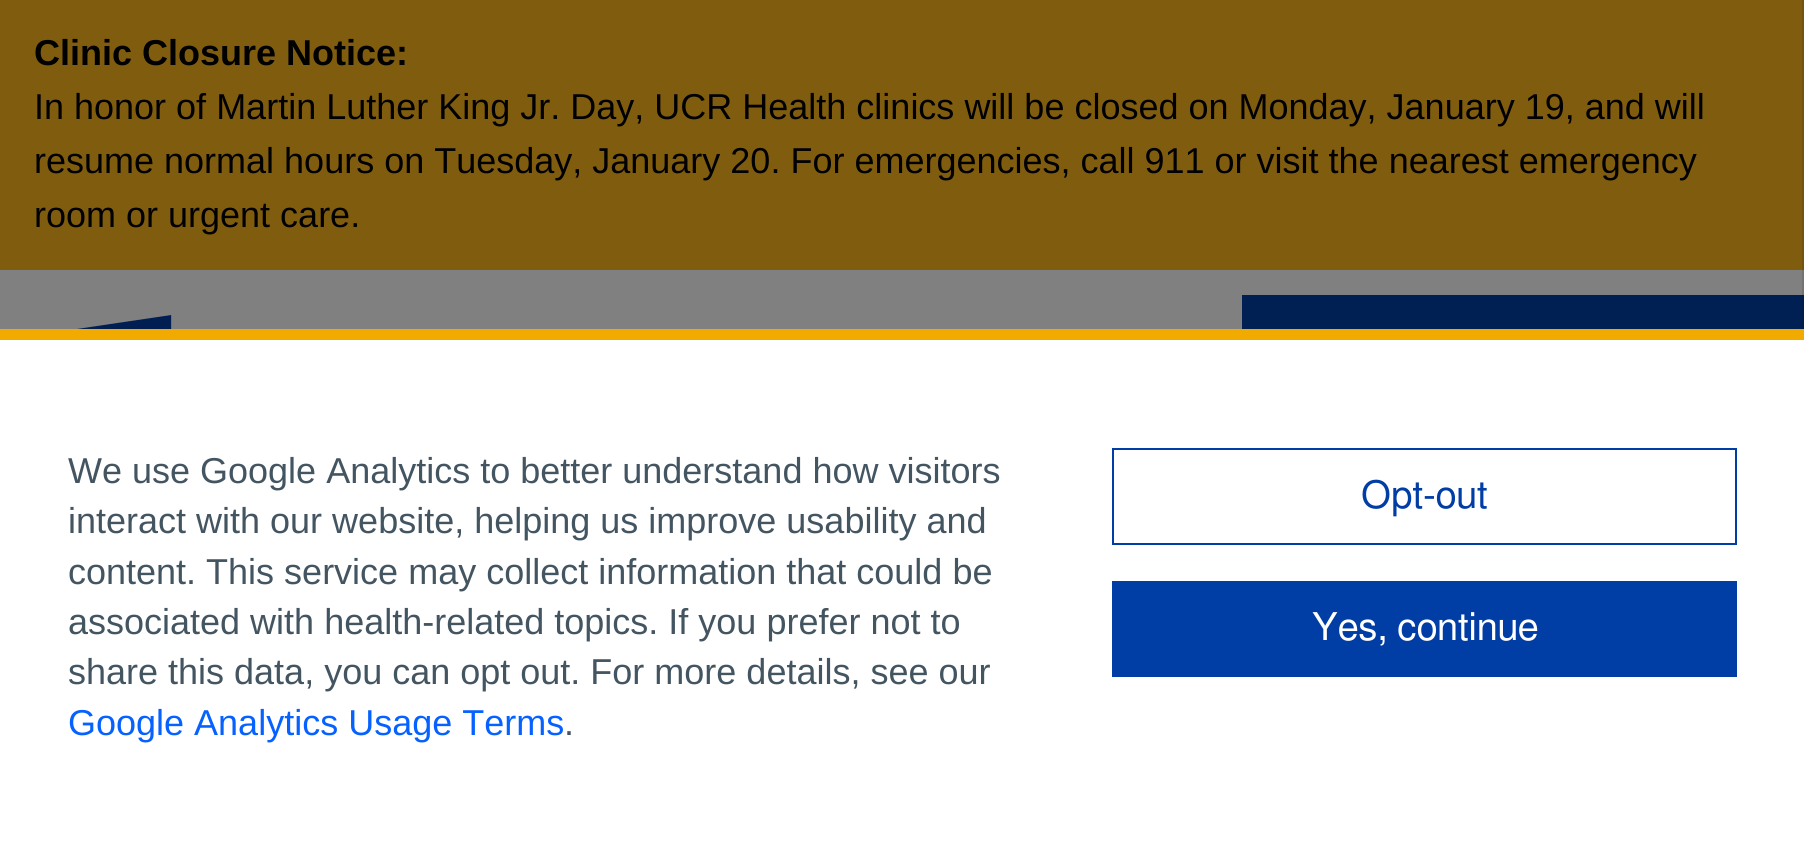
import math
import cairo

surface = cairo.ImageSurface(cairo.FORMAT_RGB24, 1804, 856)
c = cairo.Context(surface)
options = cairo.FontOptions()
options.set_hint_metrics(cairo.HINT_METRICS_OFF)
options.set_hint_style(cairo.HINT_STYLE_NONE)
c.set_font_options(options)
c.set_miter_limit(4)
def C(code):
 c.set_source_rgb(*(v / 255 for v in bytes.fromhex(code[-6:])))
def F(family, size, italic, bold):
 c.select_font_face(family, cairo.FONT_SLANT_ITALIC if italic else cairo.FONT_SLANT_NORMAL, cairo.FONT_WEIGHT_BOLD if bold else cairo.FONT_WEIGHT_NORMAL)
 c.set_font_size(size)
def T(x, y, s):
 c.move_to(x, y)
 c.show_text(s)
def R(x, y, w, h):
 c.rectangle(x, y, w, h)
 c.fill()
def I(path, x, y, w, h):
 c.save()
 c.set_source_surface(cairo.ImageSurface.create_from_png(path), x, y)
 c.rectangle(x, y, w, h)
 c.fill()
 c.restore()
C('805c0e')
c.paint()
C('808080')
R(0,270,1804,59)
C('001f53')
R(1242,295,562,34)
c.set_source_rgba(0,0,0,0.1)
R(1802,0,2,329)
I('1.png',77,315,95,14)
F('Liberation Sans',36,0,1)
C('000000')
T(34,65,'Clinic Closure Notice:')
F('Liberation Sans',36,0,0)
T(34,119,'In honor of Martin Luther King Jr. Day, UCR Health clinics will be closed on Monday, January 19, and will')
T(34,173,'resume normal hours on Tuesday, January 20. For emergencies, call 911 or visit the nearest emergency')
T(34,227,'room or urgent care.')
C('ffffff')
R(0,340,1804,516)
C('f1ab00')
R(0,329,1804,11)
C('445562')
T(68,483,'We use Google Analytics to better understand how visitors')
T(68,533,'interact with our website, helping us improve usability and')
T(68,584,'content. This service may collect information that could be')
T(68,634,'associated with health-related topics. If you prefer not to')
T(68,684,'share this data, you can opt out. For more details, see our')
C('0561ff')
T(68,735,'Google Analytics Usage Terms')
C('445562')
T(564,735,'.')
c.rectangle(1113,449,623,95)
C('003da5')
c.stroke()
F('FreeSans',38.25,0,0)
T(1361,508,'Opt-out')
R(1112,581,625,96)
C('ffffff')
T(1312,640,'Yes, continue')
surface.write_to_png('o.png')
